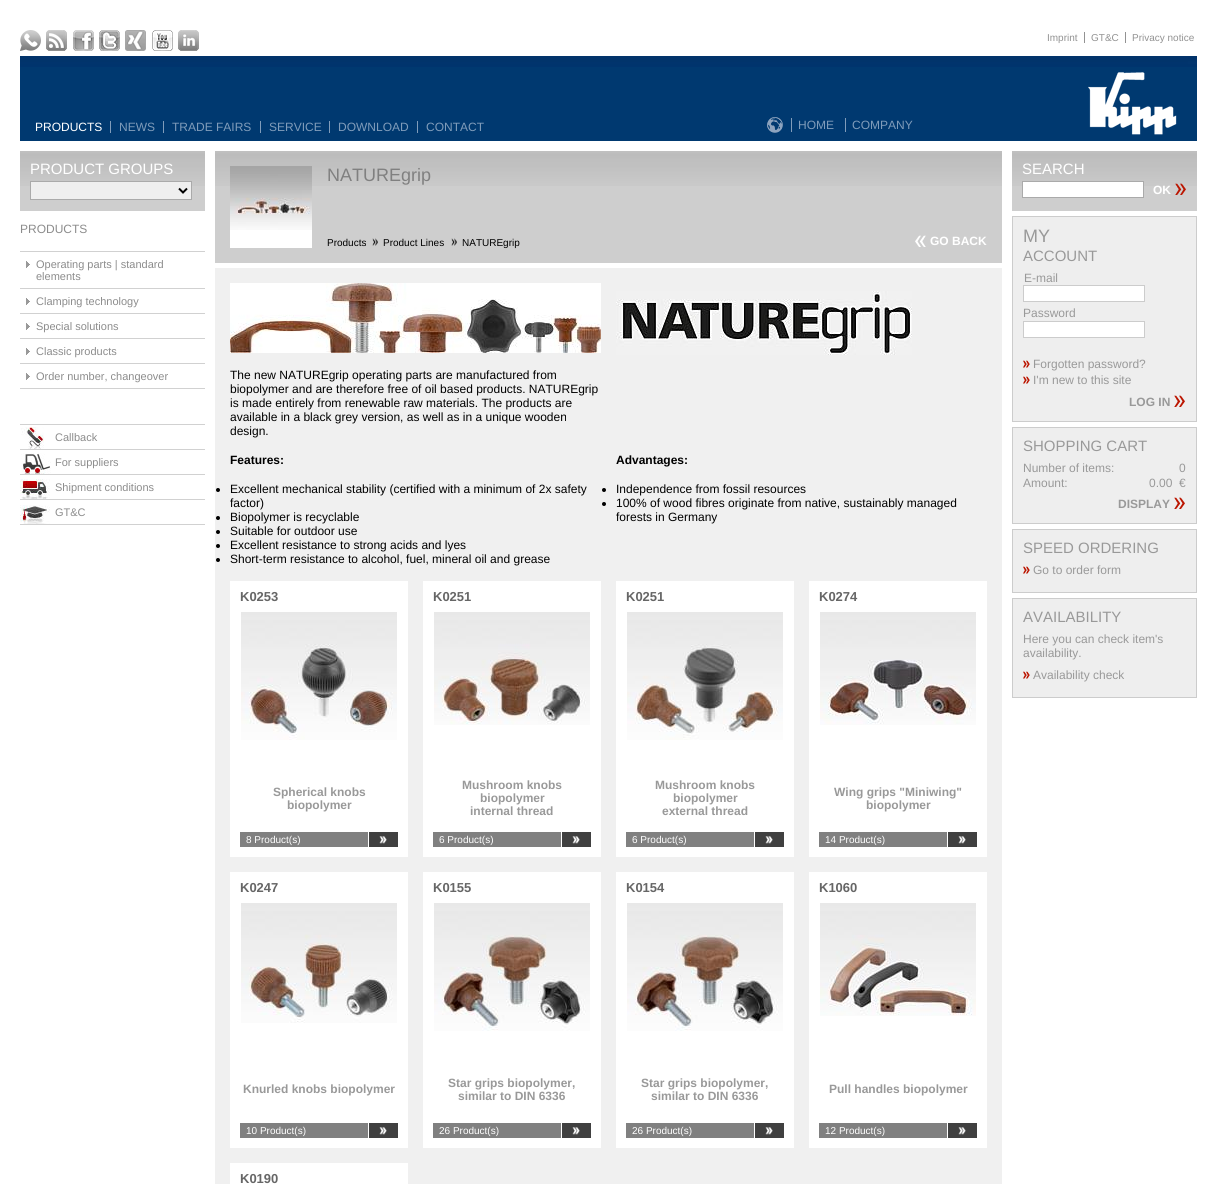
import math
import cairo

surface = cairo.ImageSurface(cairo.FORMAT_RGB24, 1217, 1184)
c = cairo.Context(surface)
options = cairo.FontOptions()
options.set_hint_metrics(cairo.HINT_METRICS_OFF)
options.set_hint_style(cairo.HINT_STYLE_NONE)
c.set_font_options(options)
c.set_miter_limit(4)
def C(code):
 c.set_source_rgb(*(v / 255 for v in bytes.fromhex(code[-6:])))
def F(family, size, italic, bold):
 c.select_font_face(family, cairo.FONT_SLANT_ITALIC if italic else cairo.FONT_SLANT_NORMAL, cairo.FONT_WEIGHT_BOLD if bold else cairo.FONT_WEIGHT_NORMAL)
 c.set_font_size(size)
def T(x, y, s):
 c.move_to(x, y)
 c.show_text(s)
def R(x, y, w, h):
 c.rectangle(x, y, w, h)
 c.fill()
def I(path, x, y, w, h):
 c.save()
 c.set_source_surface(cairo.ImageSurface.create_from_png(path), x, y)
 c.rectangle(x, y, w, h)
 c.fill()
 c.restore()
C('ffffff')
c.paint()
I('1.png',20,30,21,21)
I('2.png',46,30,21,21)
I('3.png',73,30,21,21)
I('4.png',99,30,21,21)
I('5.png',125,30,21,21)
I('6.png',152,30,21,21)
I('7.png',178,30,21,21)
F('Liberation Sans',10,0,0)
C('929292')
T(1047,41,'Imprint')
T(1091,41,'GT&C')
R(1084,32,1,11)
T(1132,41,'Privacy notice')
R(1125,32,1,11)
C('003970')
R(20,67,1177,74)
I('8.png',20,56,1177,11)
F('Liberation Sans',12,0,0)
C('ffffff')
T(35,131,'PRODUCTS')
C('809cba')
R(110,121,1,12)
T(119,131,'NEWS')
R(163,121,1,12)
T(172,131,'TRADE FAIRS')
R(260,121,1,12)
T(269,131,'SERVICE')
R(329,121,1,12)
T(338,131,'DOWNLOAD')
R(417,121,1,12)
T(426,131,'CONTACT')
I('9.png',767,117,16,16)
T(798,129,'HOME')
R(791,118,1,14)
T(852,129,'COMPANY')
R(845,118,1,14)
I('10.png',1088,72,89,63)
C('cecece')
R(20,186,185,25)
I('11.png',20,151,185,35)
F('Liberation Sans',15,0,0)
C('ffffff')
T(30,174,'PRODUCT GROUPS')
C('efefef')
c.rectangle(30.5,181.5,161,18)
c.fill_preserve()
C('aaaaaa')
c.set_line_width(1)
c.stroke()
c.new_path()
c.move_to(179,188.5)
c.line_to(183,192.5)
c.line_to(187,188.5)
C('000000')
c.set_line_width(2)
c.stroke()
F('Liberation Sans',12,0,0)
C('8c8c8c')
T(20,233,'PRODUCTS')
C('d1d1d1')
R(20,388,185,1)
R(20,251,185,1)
I('12.png',26,261,4,7)
F('Liberation Sans',11,0,0)
C('8c8c8c')
T(36,268,'Operating parts | standard')
T(36,280,'elements')
C('d1d1d1')
R(20,288,185,1)
I('12.png',26,298,4,7)
C('8c8c8c')
T(36,305,'Clamping technology')
C('d1d1d1')
R(20,313,185,1)
I('12.png',26,323,4,7)
C('8c8c8c')
T(36,330,'Special solutions')
C('d1d1d1')
R(20,338,185,1)
I('12.png',26,348,4,7)
C('8c8c8c')
T(36,355,'Classic products')
C('d1d1d1')
R(20,363,185,1)
I('12.png',26,373,4,7)
C('8c8c8c')
T(36,380,'Order number, changeover')
C('d1d1d1')
R(20,424,185,1)
R(20,449,185,1)
I('13.png',21,427,23,22)
C('8c8c8c')
T(55,441,'Callback')
C('d1d1d1')
R(20,474,185,1)
I('14.png',21,453,30,21)
C('8c8c8c')
T(55,466,'For suppliers')
C('d1d1d1')
R(20,499,185,1)
I('15.png',20,479,30,20)
C('8c8c8c')
T(55,491,'Shipment conditions')
C('d1d1d1')
R(20,524,185,1)
I('16.png',20,505,30,19)
C('8c8c8c')
T(55,516,'GT&C')
C('f0f0f0')
R(215,268,787,916)
C('cecece')
R(215,186,787,77)
I('17.png',215,151,787,35)
C('ffffff')
R(230,230,82,18)
I('18.png',230,166,82,64)
F('Liberation Sans',18,0,0)
C('808080')
T(327,181,'NATUREgrip')
I('19.png',915,235,11,12)
F('Liberation Sans',12,0,1)
C('ffffff')
T(930,245,'GO BACK')
F('Liberation Sans',10,0,0)
C('000000')
T(327,246,'Products')
I('20.png',372,238,6,8)
T(383,246,'Product Lines')
I('20.png',451,238,6,8)
T(462,246,'NATUREgrip')
I('21.png',616,291,296,64)
I('22.png',230,283,371,70)
F('Liberation Sans',12,0,0)
T(230,379,'The new NATUREgrip operating parts are manufactured from')
T(230,393,'biopolymer and are therefore free of oil based products. NATUREgrip')
T(230,407,'is made entirely from renewable raw materials. The products are')
T(230,421,'available in a black grey version, as well as in a unique wooden')
T(230,435,'design.')
F('Liberation Sans',12,0,1)
T(230,464,'Features:')
c.new_path()
c.arc(218,490,2,0,2 * math.pi)
c.fill()
F('Liberation Sans',12,0,0)
T(230,493,'Excellent mechanical stability (certified with a minimum of 2x safety')
T(230,507,'factor)')
c.new_path()
c.arc(218,518,2,0,2 * math.pi)
c.fill()
T(230,521,'Biopolymer is recyclable')
c.new_path()
c.arc(218,532,2,0,2 * math.pi)
c.fill()
T(230,535,'Suitable for outdoor use')
c.new_path()
c.arc(218,546,2,0,2 * math.pi)
c.fill()
T(230,549,'Excellent resistance to strong acids and lyes')
c.new_path()
c.arc(218,560,2,0,2 * math.pi)
c.fill()
T(230,563,'Short-term resistance to alcohol, fuel, mineral oil and grease')
F('Liberation Sans',12,0,1)
T(616,464,'Advantages:')
c.new_path()
c.arc(604,490,2,0,2 * math.pi)
c.fill()
F('Liberation Sans',12,0,0)
T(616,493,'Independence from fossil resources')
c.new_path()
c.arc(604,504,2,0,2 * math.pi)
c.fill()
T(616,507,'100% of wood fibres originate from native, sustainably managed')
T(616,521,'forests in Germany')
C('ffffff')
R(230,581,178,276)
F('Liberation Sans',13,0,1)
C('666666')
T(240,601,'K0253')
I('23.png',241,612,156,128)
F('Liberation Sans',12,0,1)
C('999999')
T(273,796,'Spherical knobs')
T(287,809,'biopolymer')
C('808080')
R(240,832,128,15)
I('24.png',368,832,30,15)
F('Liberation Sans',10,0,0)
C('ffffff')
T(246,843,'8 Product(s)')
R(423,581,178,276)
F('Liberation Sans',13,0,1)
C('666666')
T(433,601,'K0251')
I('25.png',434,612,156,113)
F('Liberation Sans',12,0,1)
C('999999')
T(462,789,'Mushroom knobs')
T(480,802,'biopolymer')
T(470,815,'internal thread')
C('808080')
R(433,832,128,15)
I('24.png',561,832,30,15)
F('Liberation Sans',10,0,0)
C('ffffff')
T(439,843,'6 Product(s)')
R(616,581,178,276)
F('Liberation Sans',13,0,1)
C('666666')
T(626,601,'K0251')
I('26.png',627,612,156,128)
F('Liberation Sans',12,0,1)
C('999999')
T(655,789,'Mushroom knobs')
T(673,802,'biopolymer')
T(662,815,'external thread')
C('808080')
R(626,832,128,15)
I('24.png',754,832,30,15)
F('Liberation Sans',10,0,0)
C('ffffff')
T(632,843,'6 Product(s)')
R(809,581,178,276)
F('Liberation Sans',13,0,1)
C('666666')
T(819,601,'K0274')
I('27.png',820,612,156,113)
F('Liberation Sans',12,0,1)
C('999999')
T(834,796,'Wing grips "Miniwing"')
T(866,809,'biopolymer')
C('808080')
R(819,832,128,15)
I('24.png',947,832,30,15)
F('Liberation Sans',10,0,0)
C('ffffff')
T(825,843,'14 Product(s)')
R(230,872,178,276)
F('Liberation Sans',13,0,1)
C('666666')
T(240,892,'K0247')
I('28.png',241,903,156,120)
F('Liberation Sans',12,0,1)
C('999999')
T(243,1093,'Knurled knobs biopolymer')
C('808080')
R(240,1123,128,15)
I('24.png',368,1123,30,15)
F('Liberation Sans',10,0,0)
C('ffffff')
T(246,1134,'10 Product(s)')
R(423,872,178,276)
F('Liberation Sans',13,0,1)
C('666666')
T(433,892,'K0155')
I('29.png',434,903,156,128)
F('Liberation Sans',12,0,1)
C('999999')
T(448,1087,'Star grips biopolymer,')
T(458,1100,'similar to DIN 6336')
C('808080')
R(433,1123,128,15)
I('24.png',561,1123,30,15)
F('Liberation Sans',10,0,0)
C('ffffff')
T(439,1134,'26 Product(s)')
R(616,872,178,276)
F('Liberation Sans',13,0,1)
C('666666')
T(626,892,'K0154')
I('29.png',627,903,156,128)
F('Liberation Sans',12,0,1)
C('999999')
T(641,1087,'Star grips biopolymer,')
T(651,1100,'similar to DIN 6336')
C('808080')
R(626,1123,128,15)
I('24.png',754,1123,30,15)
F('Liberation Sans',10,0,0)
C('ffffff')
T(632,1134,'26 Product(s)')
R(809,872,178,276)
F('Liberation Sans',13,0,1)
C('666666')
T(819,892,'K1060')
I('30.png',820,903,156,113)
F('Liberation Sans',12,0,1)
C('999999')
T(829,1093,'Pull handles biopolymer')
C('808080')
R(819,1123,128,15)
I('24.png',947,1123,30,15)
F('Liberation Sans',10,0,0)
C('ffffff')
T(825,1134,'12 Product(s)')
R(230,1163,178,21)
F('Liberation Sans',13,0,1)
C('666666')
T(240,1183,'K0190')
C('cecece')
R(1012,186,185,25)
I('11.png',1012,151,185,35)
F('Liberation Sans',15,0,0)
C('ffffff')
T(1022,174,'SEARCH')
c.rectangle(1022.5,181.5,121,16)
c.fill_preserve()
C('aaaaaa')
c.set_line_width(1)
c.stroke()
I('31.png',1175,183,11,12)
F('Liberation Sans',12,0,1)
C('ffffff')
T(1153,194,'OK')
C('eeeeee')
c.rectangle(1012.5,216.5,184,205)
c.fill_preserve()
C('cccccc')
c.stroke()
F('Liberation Sans',18,0,0)
C('999999')
T(1023,242,'MY')
F('Liberation Sans',15,0,0)
T(1023,261,'ACCOUNT')
F('Liberation Sans',12,0,0)
T(1024,282,'E-mail')
C('ffffff')
c.rectangle(1023.5,285.5,121,16)
c.fill_preserve()
C('cccccc')
c.stroke()
C('999999')
T(1023,317,'Password')
C('ffffff')
c.rectangle(1023.5,321.5,121,16)
c.fill_preserve()
C('cccccc')
c.stroke()
I('32.png',1023,360,7,8)
C('999999')
T(1033,368,'Forgotten password?')
I('32.png',1023,376,7,8)
T(1033,384,'I\'m new to this site')
I('33.png',1174,395,11,12)
F('Liberation Sans',12,0,1)
T(1129,406,'LOG IN')
C('eeeeee')
c.rectangle(1012.5,427.5,184,96)
c.fill_preserve()
C('cccccc')
c.stroke()
F('Liberation Sans',15,0,0)
C('999999')
T(1023,451,'SHOPPING CART')
F('Liberation Sans',12,0,0)
T(1023,472,'Number of items:')
T(1179,472,'0')
T(1023,487,'Amount:')
T(1149,487,'0.00')
T(1179,487,'€')
I('33.png',1174,497,11,12)
F('Liberation Sans',12,0,1)
T(1118,508,'DISPLAY')
C('eeeeee')
c.rectangle(1012.5,529.5,184,63)
c.fill_preserve()
C('cccccc')
c.stroke()
F('Liberation Sans',15,0,0)
C('999999')
T(1023,553,'SPEED ORDERING')
I('32.png',1023,566,7,8)
F('Liberation Sans',12,0,0)
T(1033,574,'Go to order form')
C('eeeeee')
c.rectangle(1012.5,598.5,184,99)
c.fill_preserve()
C('cccccc')
c.stroke()
F('Liberation Sans',15,0,0)
C('999999')
T(1023,622,'AVAILABILITY')
F('Liberation Sans',12,0,0)
T(1023,643,'Here you can check item\'s')
T(1023,657,'availability.')
I('32.png',1023,671,7,8)
T(1033,679,'Availability check')
surface.write_to_png('o.png')
